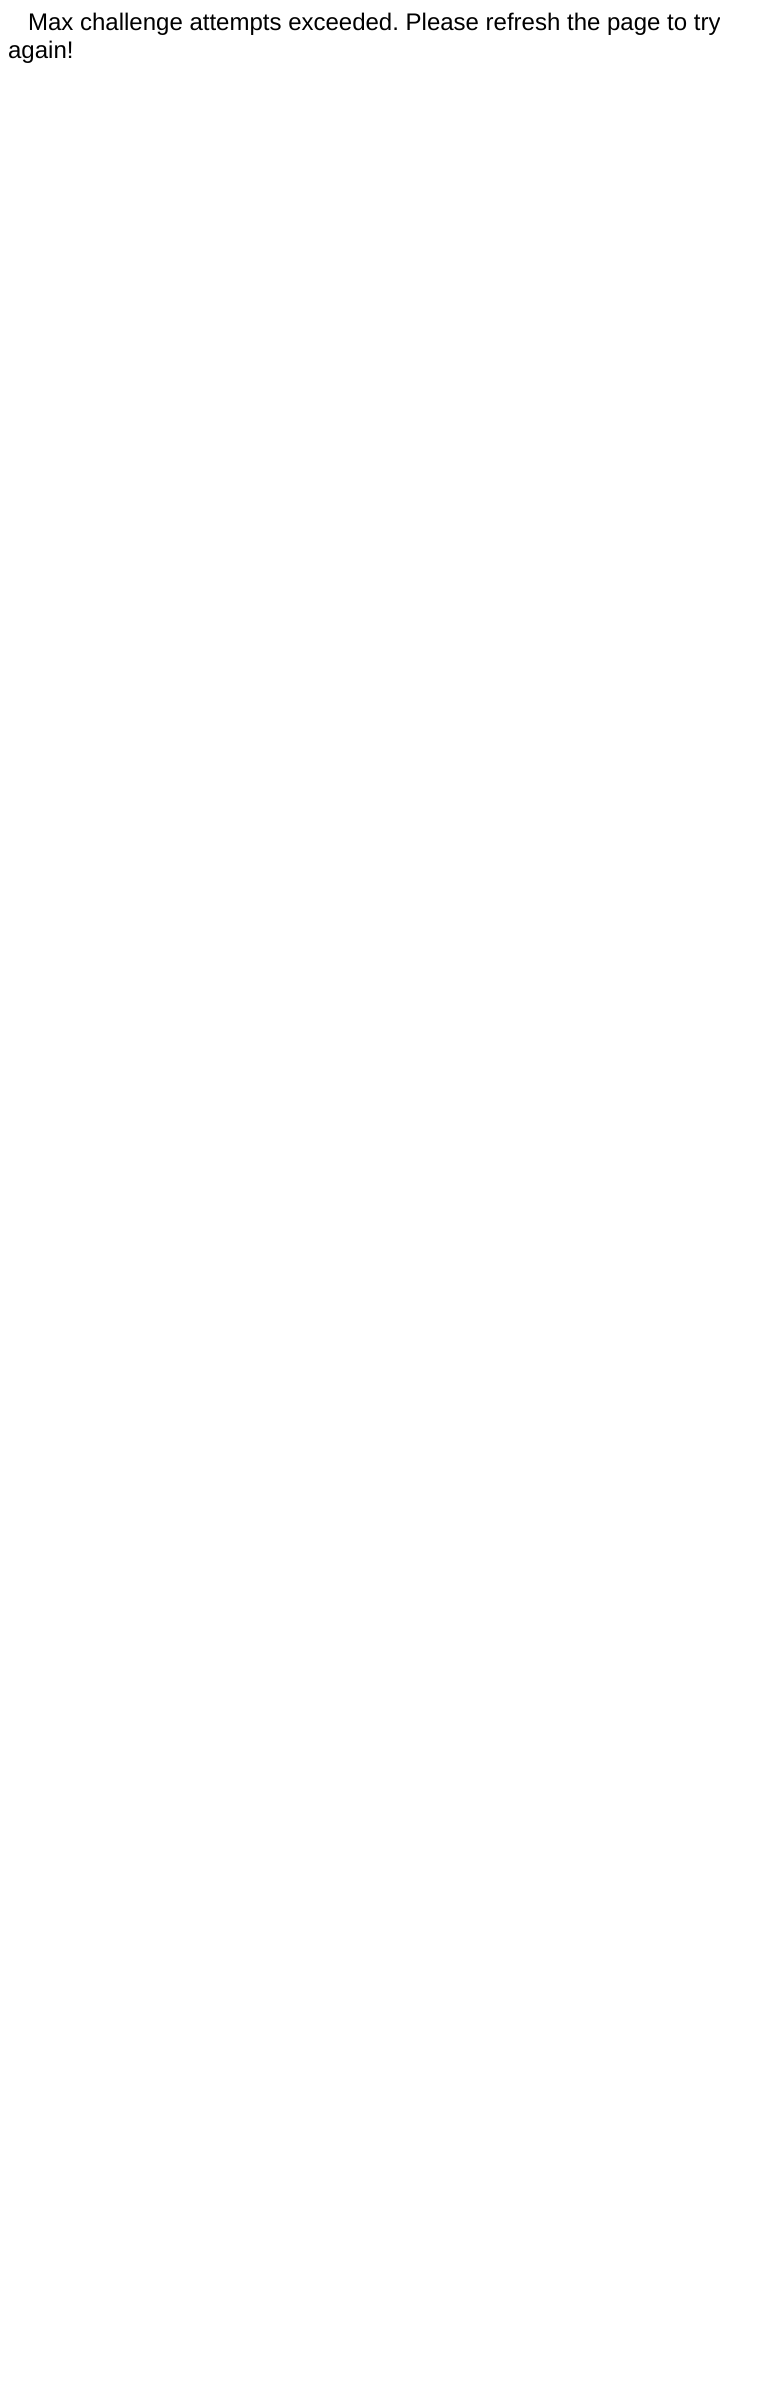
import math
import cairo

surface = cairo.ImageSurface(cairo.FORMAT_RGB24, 768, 2408)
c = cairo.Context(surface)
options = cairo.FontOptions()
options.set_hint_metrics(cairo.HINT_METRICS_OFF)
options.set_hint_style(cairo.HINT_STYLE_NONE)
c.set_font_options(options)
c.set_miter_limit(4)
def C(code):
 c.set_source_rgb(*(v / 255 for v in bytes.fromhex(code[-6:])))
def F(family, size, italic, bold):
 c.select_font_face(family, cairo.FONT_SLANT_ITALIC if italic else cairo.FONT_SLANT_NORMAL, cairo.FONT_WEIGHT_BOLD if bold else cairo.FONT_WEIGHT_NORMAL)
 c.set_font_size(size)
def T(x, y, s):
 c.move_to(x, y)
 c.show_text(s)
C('ffffff')
c.paint()
F('Liberation Sans',24,0,0)
C('000000')
T(28,30,'Max challenge attempts exceeded. Please refresh the page to try')
T(8,58,'again!')
surface.write_to_png('o.png')
